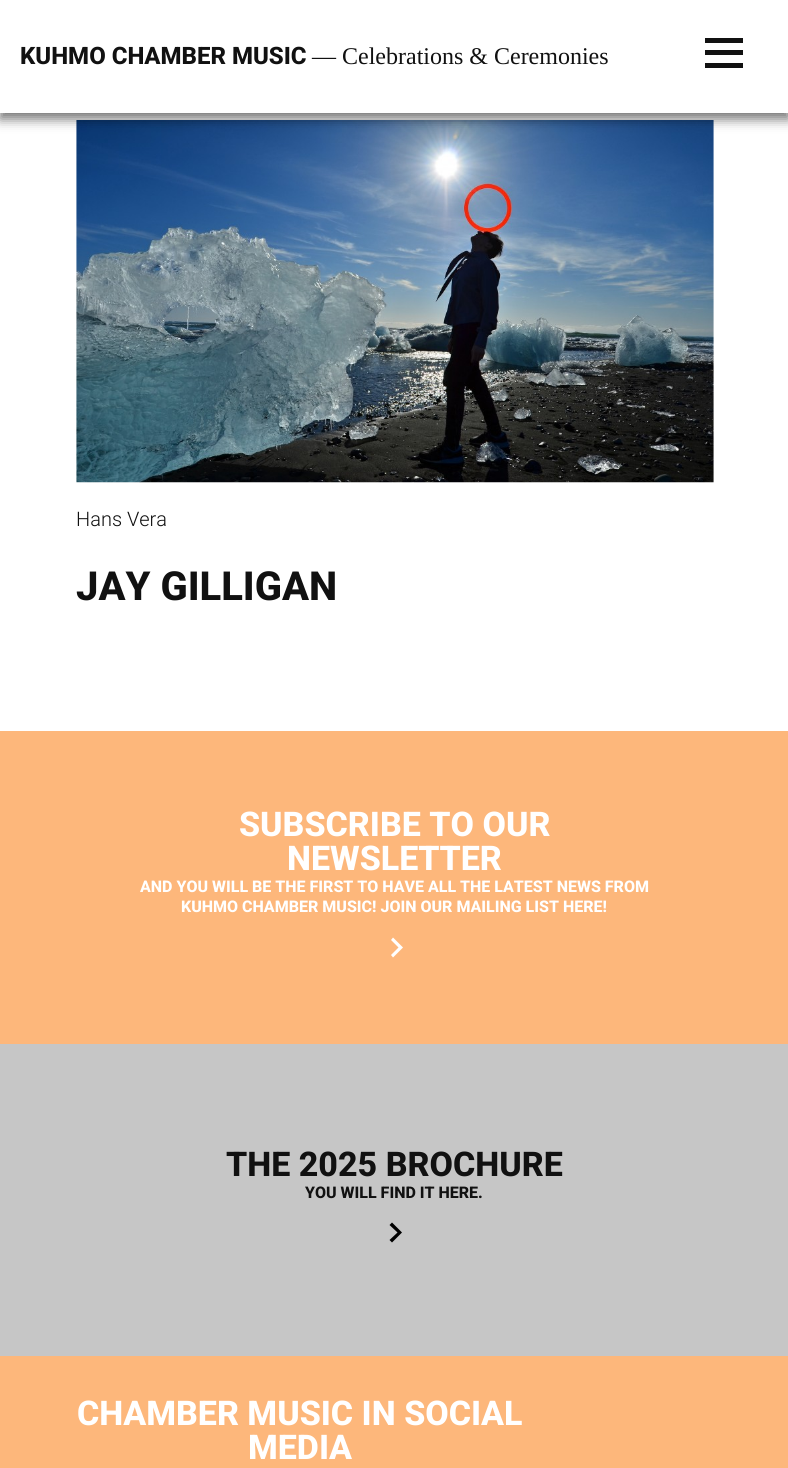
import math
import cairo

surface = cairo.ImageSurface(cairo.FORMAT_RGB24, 788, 1468)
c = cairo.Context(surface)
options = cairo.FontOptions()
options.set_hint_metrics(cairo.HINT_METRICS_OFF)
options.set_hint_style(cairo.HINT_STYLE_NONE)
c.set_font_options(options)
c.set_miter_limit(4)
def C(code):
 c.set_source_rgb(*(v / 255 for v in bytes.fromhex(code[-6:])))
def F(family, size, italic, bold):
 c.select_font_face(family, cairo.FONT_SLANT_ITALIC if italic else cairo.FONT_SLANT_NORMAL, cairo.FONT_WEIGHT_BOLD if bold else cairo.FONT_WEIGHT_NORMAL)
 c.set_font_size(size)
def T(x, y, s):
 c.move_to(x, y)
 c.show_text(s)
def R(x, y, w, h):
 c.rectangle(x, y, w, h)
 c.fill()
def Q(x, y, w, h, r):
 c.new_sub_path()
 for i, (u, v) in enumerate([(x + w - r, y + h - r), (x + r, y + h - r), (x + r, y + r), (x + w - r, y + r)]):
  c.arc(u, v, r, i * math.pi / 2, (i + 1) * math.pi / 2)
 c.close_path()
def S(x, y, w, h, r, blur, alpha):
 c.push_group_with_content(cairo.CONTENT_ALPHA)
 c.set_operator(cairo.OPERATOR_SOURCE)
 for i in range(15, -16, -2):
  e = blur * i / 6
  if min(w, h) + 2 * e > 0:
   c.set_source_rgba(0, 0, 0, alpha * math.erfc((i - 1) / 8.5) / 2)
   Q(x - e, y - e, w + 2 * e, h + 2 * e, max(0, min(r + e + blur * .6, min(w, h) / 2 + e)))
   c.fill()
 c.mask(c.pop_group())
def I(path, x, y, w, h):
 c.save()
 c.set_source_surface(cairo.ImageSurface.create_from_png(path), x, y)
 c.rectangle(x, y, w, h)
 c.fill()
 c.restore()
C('ffffff')
c.paint()
I('1.png',76,120,638,363)
C('000000')
S(0,6,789,113,0,6,.55)
C('ffffff')
R(0,0,788,113)
F('Roboto ExtraBold',24,0,0)
C('111111')
T(20,64,'KUHMO CHAMBER MUSIC')
F('Liberation Serif',24,0,0)
T(312,64,'— Celebrations & Ceremonies')
R(705,38,38,5)
R(705,50,38,5)
R(705,63,38,5)
F('Roboto Light',20,0,0)
T(76,526,'Hans Vera')
F('Roboto ExtraBold',40,0,0)
T(76,600,'JAY GILLIGAN')
C('fdb77b')
R(0,731,788,313)
F('Roboto ExtraBold',34,0,0)
C('ffffff')
T(239,836,'SUBSCRIBE TO OUR')
T(287,870,'NEWSLETTER')
F('Roboto ExtraBold',16,0,0)
T(140,892,'AND YOU WILL BE THE FIRST TO HAVE ALL THE LATEST NEWS FROM')
T(181,912,'KUHMO CHAMBER MUSIC! JOIN OUR MAILING LIST HERE!')
c.new_path()
c.move_to(393,957.5)
c.line_to(391,955)
c.line_to(398.5,947.5)
c.line_to(391,940)
c.line_to(393,937.5)
c.line_to(403,947.5)
c.close_path()
c.fill()
C('c6c6c6')
R(0,1044,788,312)
F('Roboto ExtraBold',34,0,0)
C('111111')
T(226,1176,'THE 2025 BROCHURE')
F('Roboto ExtraBold',16,0,0)
T(305,1198,'YOU WILL FIND IT HERE.')
C('000000')
c.new_path()
c.move_to(392,1242.5)
c.line_to(389.5,1240)
c.line_to(397.5,1232.5)
c.line_to(389.5,1225)
c.line_to(392,1222.5)
c.line_to(402,1232.5)
c.close_path()
c.fill()
C('fdb77b')
R(0,1356,788,112)
F('Roboto ExtraBold',34,0,0)
C('ffffff')
T(77,1425,'CHAMBER MUSIC IN SOCIAL')
T(248,1459,'MEDIA')
surface.write_to_png('o.png')
